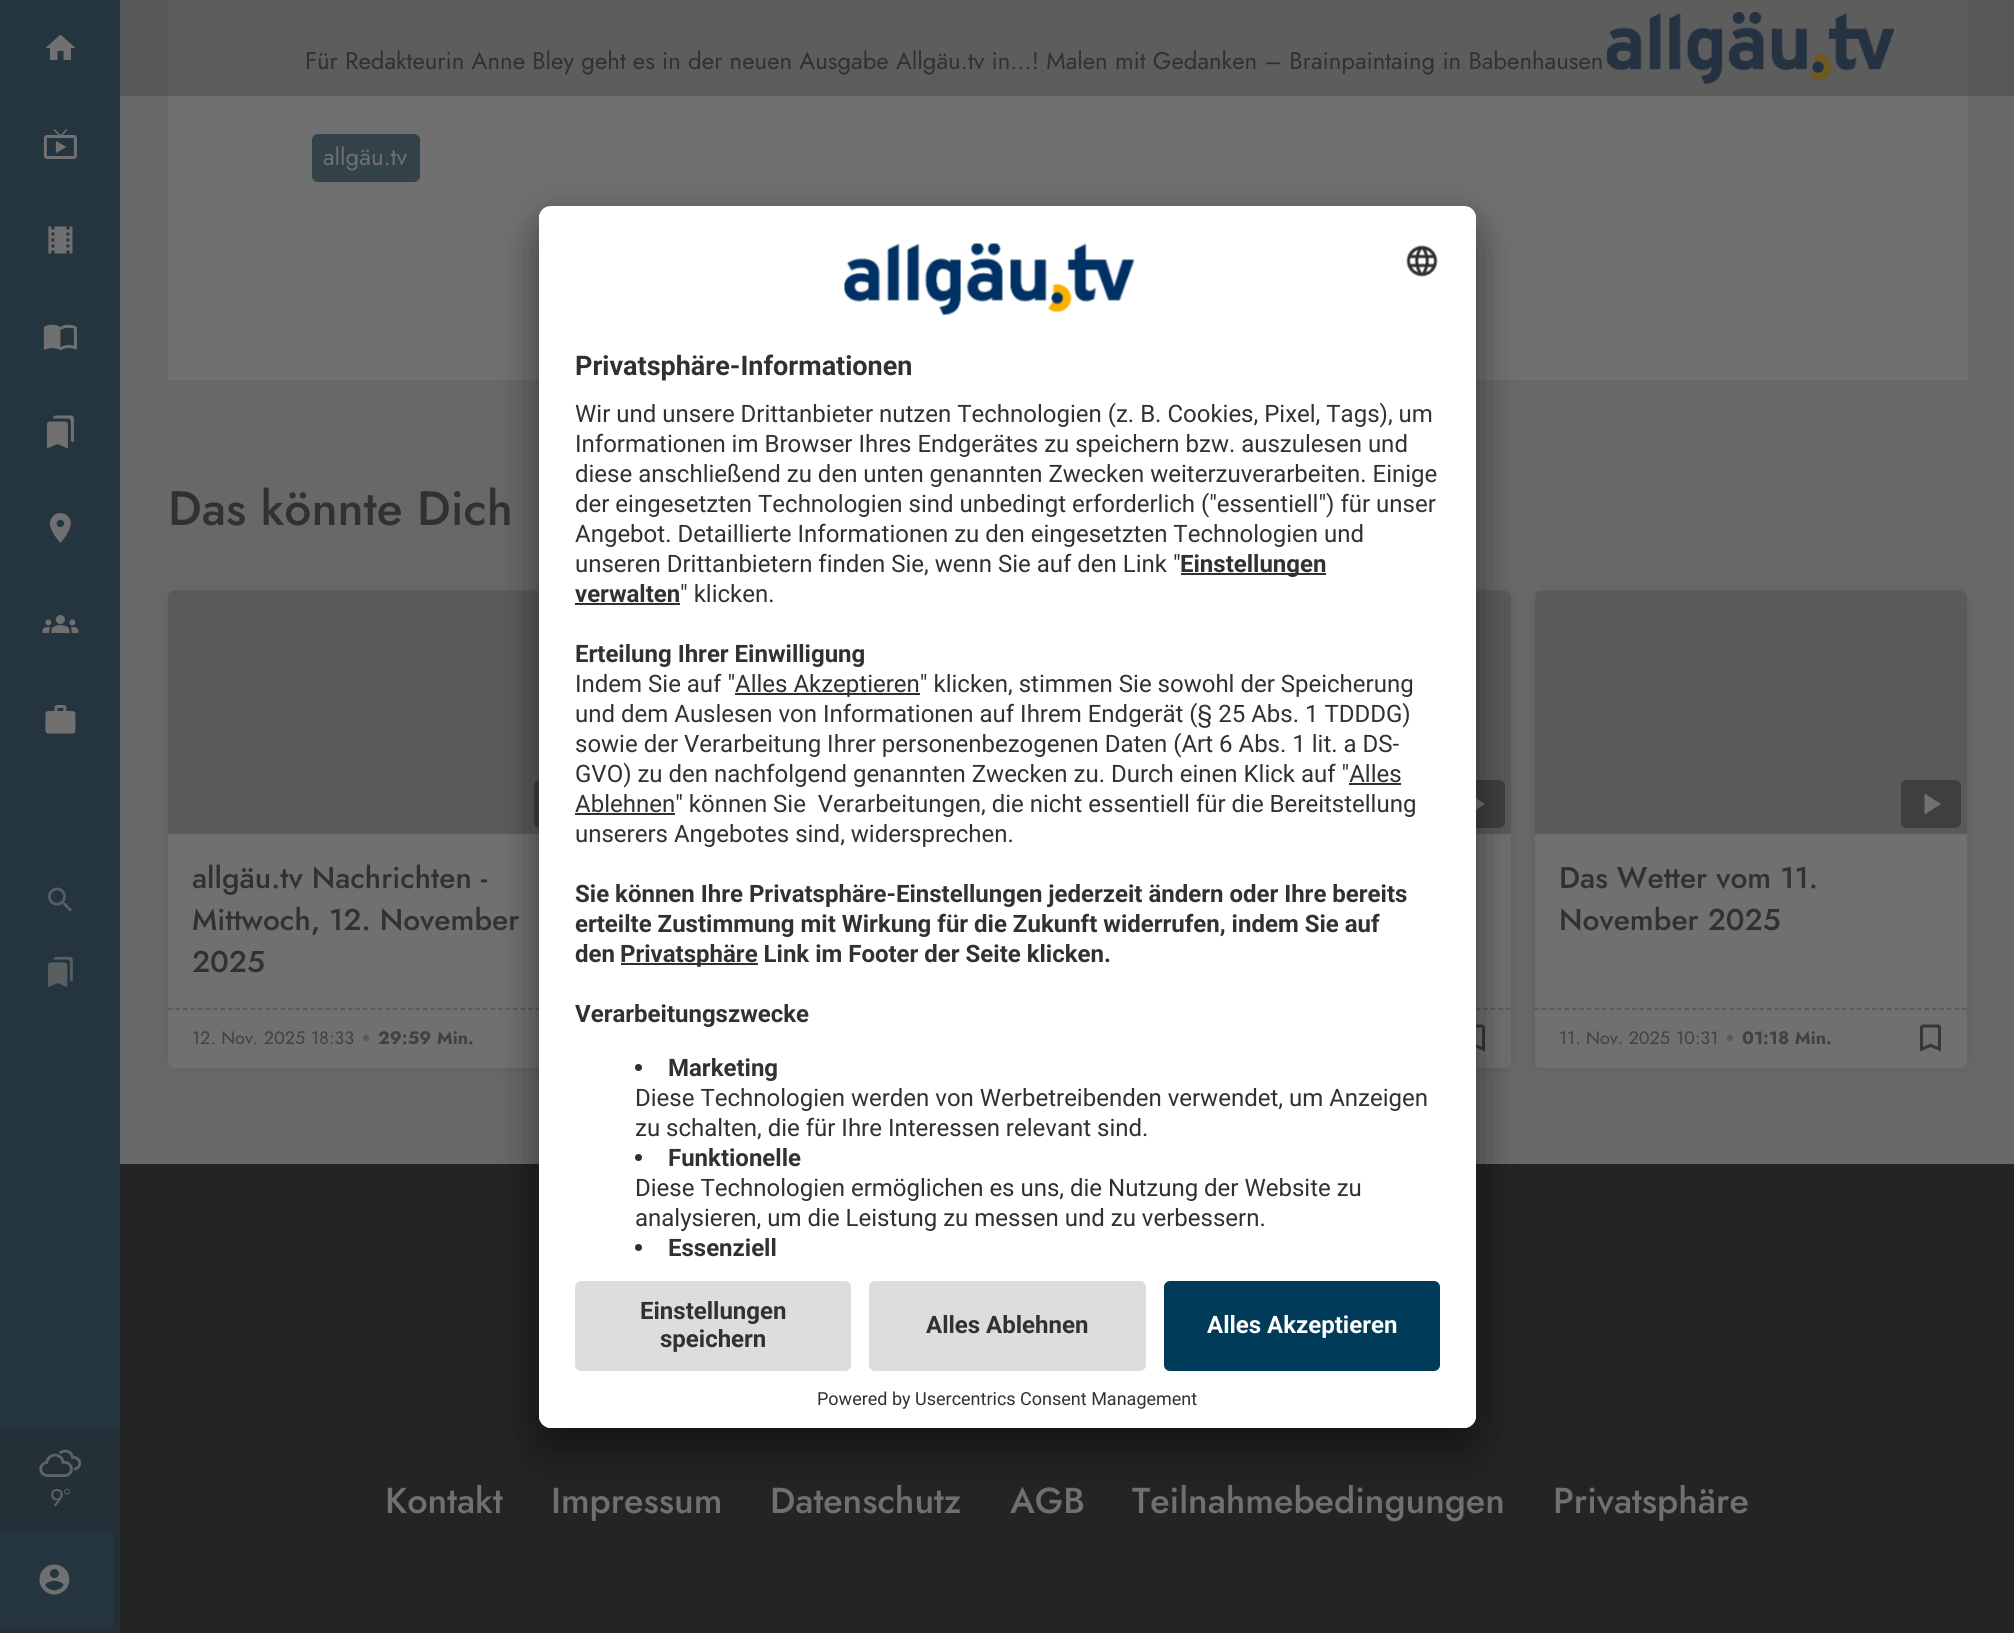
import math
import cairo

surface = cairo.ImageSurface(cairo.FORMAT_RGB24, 2014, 1633)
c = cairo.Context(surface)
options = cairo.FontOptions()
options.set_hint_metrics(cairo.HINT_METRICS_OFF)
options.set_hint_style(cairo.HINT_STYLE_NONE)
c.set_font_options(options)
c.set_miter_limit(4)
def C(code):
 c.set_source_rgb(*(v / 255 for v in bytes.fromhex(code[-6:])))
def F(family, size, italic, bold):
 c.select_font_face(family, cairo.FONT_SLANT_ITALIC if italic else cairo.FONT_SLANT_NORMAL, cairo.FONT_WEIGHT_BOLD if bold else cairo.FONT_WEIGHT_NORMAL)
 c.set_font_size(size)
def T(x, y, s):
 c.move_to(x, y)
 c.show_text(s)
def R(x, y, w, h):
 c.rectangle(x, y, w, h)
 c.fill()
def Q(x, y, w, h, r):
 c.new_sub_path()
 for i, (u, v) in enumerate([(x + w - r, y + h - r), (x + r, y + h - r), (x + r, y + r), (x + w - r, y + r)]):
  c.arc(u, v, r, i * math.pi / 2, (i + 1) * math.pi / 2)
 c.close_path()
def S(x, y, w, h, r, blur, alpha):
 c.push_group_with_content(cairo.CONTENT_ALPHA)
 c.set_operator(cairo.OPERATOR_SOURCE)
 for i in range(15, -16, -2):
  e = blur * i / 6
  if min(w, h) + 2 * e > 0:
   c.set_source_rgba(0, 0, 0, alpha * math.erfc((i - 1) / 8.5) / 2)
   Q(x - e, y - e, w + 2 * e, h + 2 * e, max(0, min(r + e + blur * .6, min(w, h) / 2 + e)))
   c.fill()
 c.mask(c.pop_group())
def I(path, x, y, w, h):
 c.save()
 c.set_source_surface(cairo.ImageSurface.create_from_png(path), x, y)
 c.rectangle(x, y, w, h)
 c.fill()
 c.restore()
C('676869')
c.paint()
C('565758')
R(120,0,1894,96)
C('5d5d5d')
R(168,0,1800,96)
I('1.png',1607,12,288,72)
C('24353f')
R(0,0,120,1430)
C('707070')
c.new_path()
c.move_to(57.5,60)
c.line_to(50,60)
c.line_to(50,48)
c.line_to(45.5,48)
c.line_to(60.5,34.5)
c.line_to(75.5,48)
c.line_to(71,48)
c.line_to(71,60)
c.line_to(63.5,60)
c.line_to(63.5,51)
c.line_to(57.5,51)
c.close_path()
c.fill()
I('2.png',43,129,34,30)
I('3.png',48,226,25,28)
I('4.png',43,324,34,27)
I('5.png',46,415,28,34)
I('6.png',49,513,22,30)
I('7.png',42,615,37,18)
I('8.png',45,705,31,29)
I('9.png',48,887,24,25)
I('10.png',48,956,25,31)
C('243037')
R(0,1430,120,203)
I('11.png',39,1449,43,28)
F('Jost',24,0,0)
C('616365')
T(50,1506,'9°')
C('24353f')
Q(-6,1532,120,96,6)
c.fill()
I('12.png',39,1564,31,31)
C('707070')
R(168,96,1800,284)
C('313131')
T(305,69,'Für Redakteurin Anne Bley geht es in der neuen Ausgabe Allgäu.tv in…! Malen mit Gedanken – Brainpaintaing in Babenhausen')
C('334149')
Q(312,134,108,48,6)
c.fill()
C('707070')
T(323,165,'allgäu.tv')
F('Jost Medium',48,0,0)
C('313131')
T(168,525,'Das könnte Dich')
C('242424')
S(176,599,417,462,0,7.5,.4)
C('707070')
Q(168,591,432,477,6)
c.fill()
c.set_source_rgba(0.141,0.141,0.141,0.2)
c.new_path()
c.move_to(174,591)
c.line_to(594,591)
c.curve_to(597.5,591,600,593.5,600,597)
c.line_to(600,834)
c.line_to(168,834)
c.line_to(168,597)
c.curve_to(168,593.5,170.5,591,174,591)
c.close_path()
c.fill()
c.set_source_rgba(0.141,0.141,0.141,0.1)
c.new_path()
c.move_to(174,591)
c.line_to(594,591)
c.curve_to(597.5,591,600,593.5,600,597)
c.line_to(600,834)
c.line_to(168,834)
c.line_to(168,597)
c.curve_to(168,593.5,170.5,591,174,591)
c.close_path()
c.fill()
C('3f3f3f')
Q(534,780,60,48,6)
c.fill()
F('Jost Medium',30,0,0)
C('313131')
T(192,888,'allgäu.tv Nachrichten -')
T(192,930,'Mittwoch, 12. November')
T(192,972,'2025')
c.new_path()
c.move_to(168,1009)
c.line_to(600,1009)
C('535353')
c.set_line_width(1.5)
c.set_dash([4.5,3])
c.stroke()
F('Jost',18,0,0)
C('414141')
T(192,1044,'12. Nov. 2025')
T(311,1044,'18:33')
C('595959')
c.new_path()
c.arc(366,1038,3,0,2 * math.pi)
c.fill()
F('Jost',18,0,1)
C('414141')
T(378,1044,'29:59 Min.')
C('242424')
S(1088,599,415,462,0,7.5,.4)
C('707070')
Q(1080,591,431,477,6)
c.fill()
c.set_source_rgba(0.141,0.141,0.141,0.2)
c.new_path()
c.move_to(1086,591)
c.line_to(1505,591)
c.curve_to(1508.5,591,1511,593.5,1511,597)
c.line_to(1511,834)
c.line_to(1080,834)
c.line_to(1080,597)
c.curve_to(1080,593.5,1082.5,591,1086,591)
c.close_path()
c.fill()
c.set_source_rgba(0.141,0.141,0.141,0.1)
c.new_path()
c.move_to(1086,591)
c.line_to(1505,591)
c.curve_to(1508.5,591,1511,593.5,1511,597)
c.line_to(1511,834)
c.line_to(1080,834)
c.line_to(1080,597)
c.curve_to(1080,593.5,1082.5,591,1086,591)
c.close_path()
c.fill()
C('3f3f3f')
Q(1445,780,60,48,6)
c.fill()
C('707070')
c.new_path()
c.move_to(1468.5,793.5)
c.line_to(1485,804)
c.line_to(1468.5,814.5)
c.close_path()
c.fill()
c.new_path()
c.move_to(1080,1009)
c.line_to(1510.5,1009)
C('535353')
c.set_dash([4.5,2.97])
c.stroke()
I('13.png',1476,1024,9,28)
C('242424')
S(1542,599,417,462,0,7.5,.4)
C('707070')
Q(1535,591,432,477,6)
c.fill()
c.set_source_rgba(0.141,0.141,0.141,0.2)
c.new_path()
c.move_to(1541,591)
c.line_to(1961,591)
c.curve_to(1964.5,591,1967,593.5,1967,597)
c.line_to(1967,834)
c.line_to(1535,834)
c.line_to(1535,597)
c.curve_to(1535,593.5,1537.5,591,1541,591)
c.close_path()
c.fill()
c.set_source_rgba(0.141,0.141,0.141,0.1)
c.new_path()
c.move_to(1541,591)
c.line_to(1961,591)
c.curve_to(1964.5,591,1967,593.5,1967,597)
c.line_to(1967,834)
c.line_to(1535,834)
c.line_to(1535,597)
c.curve_to(1535,593.5,1537.5,591,1541,591)
c.close_path()
c.fill()
C('3f3f3f')
Q(1901,780,60,48,6)
c.fill()
C('707070')
c.new_path()
c.move_to(1924.5,793.5)
c.line_to(1941,804)
c.line_to(1924.5,814.5)
c.close_path()
c.fill()
F('Jost Medium',30,0,0)
C('313131')
T(1559,888,'Das Wetter vom 11.')
T(1559,930,'November 2025')
c.new_path()
c.move_to(1534.5,1009)
c.line_to(1966.5,1009)
C('535353')
c.set_dash([4.5,3])
c.stroke()
F('Jost',18,0,0)
C('414141')
T(1559,1044,'11. Nov. 2025')
T(1676,1044,'10:31')
C('595959')
c.new_path()
c.arc(1730,1038,3,0,2 * math.pi)
c.fill()
F('Jost',18,0,1)
C('414141')
T(1742,1044,'01:18 Min.')
I('14.png',1920,1024,21,28)
C('242424')
R(120,1164,1894,469)
F('Jost Medium',36,0,0)
C('707070')
T(385,1513,'Kontakt')
T(551,1513,'Impressum')
T(770,1513,'Datenschutz')
T(1010,1513,'AGB')
T(1132,1513,'Teilnahmebedingungen')
T(1553,1513,'Privatsphäre')
C('000000')
S(539,236,937,1222,12,21,.3)
S(539,213,937,1223,12,19.5,.22)
C('ffffff')
Q(539,206,937,1222,12)
c.fill()
c.save()
Q(539,206,937,1222,12)
c.clip()
c.new_path()
c.move_to(551,206)
c.line_to(1464,206)
c.curve_to(1470.5,206,1476,211.5,1476,218)
c.line_to(1476,1269)
c.line_to(539,1269)
c.line_to(539,218)
c.curve_to(539,211.5,544.5,206,551,206)
c.close_path()
c.clip()
R(539,207,937,1062)
c.restore()
I('15.png',844,243,291,72)
I('16.png',1406,245,32,32)
F('Roboto',27,0,1)
C('313131')
T(575,375,'Privatsphäre-Informationen')
F('Roboto',24,0,0)
T(575,422,'Wir und unsere Drittanbieter nutzen Technologien (z. B. Cookies, Pixel, Tags), um')
T(575,452,'Informationen im Browser Ihres Endgerätes zu speichern bzw. auszulesen und')
T(575,482,'diese anschließend zu den unten genannten Zwecken weiterzuverarbeiten. Einige')
T(575,512,'der eingesetzten Technologien sind unbedingt erforderlich ("essentiell") für unser')
T(575,542,'Angebot. Detaillierte Informationen zu den eingesetzten Technologien und')
T(575,572,'unseren Drittanbietern finden Sie, wenn Sie auf den Link "')
C('303030')
R(1181,573,145,2)
F('Roboto',24,0,1)
C('313131')
T(1180,572,'Einstellungen')
T(575,602,'verwalten')
C('303030')
R(575,603,105,2)
F('Roboto',24,0,0)
C('313131')
T(680,602,'" klicken.')
F('Roboto',24,0,1)
T(575,662,'Erteilung Ihrer Einwilligung')
F('Roboto',24,0,0)
T(575,692,'Indem Sie auf "')
C('303030')
R(735,693,185,2)
C('313131')
T(735,692,'Alles Akzeptieren" klicken, stimmen Sie sowohl der Speicherung')
T(575,722,'und dem Auslesen von Informationen auf Ihrem Endgerät (§ 25 Abs. 1 TDDDG)')
T(575,752,'sowie der Verarbeitung Ihrer personenbezogenen Daten (Art 6 Abs. 1 lit. a DS-')
T(575,782,'GVO) zu den nachfolgend genannten Zwecken zu. Durch einen Klick auf "Alles')
C('303030')
R(575,813,100,2)
C('313131')
T(575,812,'Ablehnen" können Sie  Verarbeitungen, die nicht essentiell für die Bereitstellung')
C('303030')
R(1349,783,52,2)
C('313131')
T(575,842,'unserers Angebotes sind, widersprechen.')
F('Roboto',24,0,1)
T(575,902,'Sie können Ihre Privatsphäre-Einstellungen jederzeit ändern oder Ihre bereits')
T(575,932,'erteilte Zustimmung mit Wirkung für die Zukunft widerrufen, indem Sie auf')
T(575,962,'den')
C('303030')
R(621,963,137,2)
C('313131')
T(620,962,'Privatsphäre Link im Footer der Seite klicken.')
T(575,1022,'Verarbeitungszwecke')
C('303030')
c.new_path()
c.arc(638.5,1067.5,3.5,0,2 * math.pi)
c.fill()
C('313131')
T(668,1076,'Marketing')
F('Roboto',24,0,0)
T(635,1106,'Diese Technologien werden von Werbetreibenden verwendet, um Anzeigen')
T(635,1136,'zu schalten, die für Ihre Interessen relevant sind.')
C('303030')
c.new_path()
c.arc(638.5,1157.5,3.5,0,2 * math.pi)
c.fill()
F('Roboto',24,0,1)
C('313131')
T(668,1166,'Funktionelle')
F('Roboto',24,0,0)
T(635,1196,'Diese Technologien ermöglichen es uns, die Nutzung der Website zu')
T(635,1226,'analysieren, um die Leistung zu messen und zu verbessern.')
C('303030')
c.new_path()
c.arc(638.5,1247.5,3.5,0,2 * math.pi)
c.fill()
F('Roboto',24,0,1)
C('313131')
T(668,1256,'Essenziell')
C('ffffff')
c.new_path()
c.move_to(539,1269)
c.line_to(1476,1269)
c.line_to(1476,1416)
c.curve_to(1476,1422.5,1470.5,1428,1464,1428)
c.line_to(551,1428)
c.curve_to(544.5,1428,539,1422.5,539,1416)
c.close_path()
c.fill()
C('dddddd')
Q(575,1281,276,90,6)
c.fill()
C('313131')
T(640,1319,'Einstellungen')
T(660,1347,'speichern')
C('dddddd')
Q(869,1281,277,90,6)
c.fill()
C('313131')
T(926,1333,'Alles Ablehnen')
C('013b5a')
Q(1164,1281,276,90,6)
c.fill()
C('ffffff')
T(1207,1333,'Alles Akzeptieren')
F('Roboto',18,0,0)
C('313131')
T(817,1405,'Powered by Usercentrics Consent Management')
surface.write_to_png('o.png')
